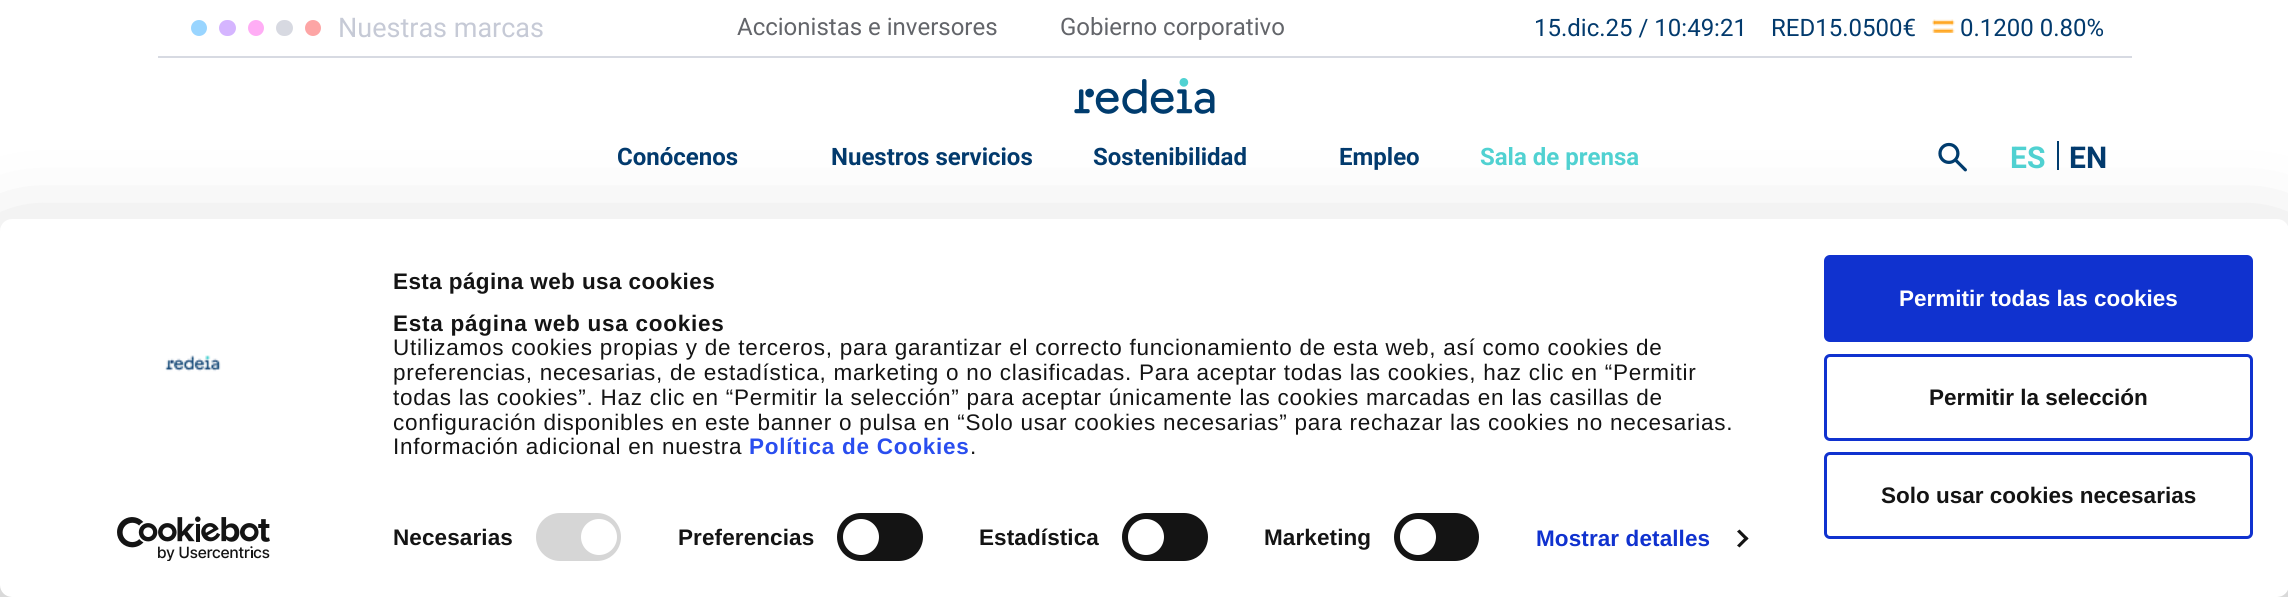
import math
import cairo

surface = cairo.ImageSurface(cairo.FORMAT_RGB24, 2288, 597)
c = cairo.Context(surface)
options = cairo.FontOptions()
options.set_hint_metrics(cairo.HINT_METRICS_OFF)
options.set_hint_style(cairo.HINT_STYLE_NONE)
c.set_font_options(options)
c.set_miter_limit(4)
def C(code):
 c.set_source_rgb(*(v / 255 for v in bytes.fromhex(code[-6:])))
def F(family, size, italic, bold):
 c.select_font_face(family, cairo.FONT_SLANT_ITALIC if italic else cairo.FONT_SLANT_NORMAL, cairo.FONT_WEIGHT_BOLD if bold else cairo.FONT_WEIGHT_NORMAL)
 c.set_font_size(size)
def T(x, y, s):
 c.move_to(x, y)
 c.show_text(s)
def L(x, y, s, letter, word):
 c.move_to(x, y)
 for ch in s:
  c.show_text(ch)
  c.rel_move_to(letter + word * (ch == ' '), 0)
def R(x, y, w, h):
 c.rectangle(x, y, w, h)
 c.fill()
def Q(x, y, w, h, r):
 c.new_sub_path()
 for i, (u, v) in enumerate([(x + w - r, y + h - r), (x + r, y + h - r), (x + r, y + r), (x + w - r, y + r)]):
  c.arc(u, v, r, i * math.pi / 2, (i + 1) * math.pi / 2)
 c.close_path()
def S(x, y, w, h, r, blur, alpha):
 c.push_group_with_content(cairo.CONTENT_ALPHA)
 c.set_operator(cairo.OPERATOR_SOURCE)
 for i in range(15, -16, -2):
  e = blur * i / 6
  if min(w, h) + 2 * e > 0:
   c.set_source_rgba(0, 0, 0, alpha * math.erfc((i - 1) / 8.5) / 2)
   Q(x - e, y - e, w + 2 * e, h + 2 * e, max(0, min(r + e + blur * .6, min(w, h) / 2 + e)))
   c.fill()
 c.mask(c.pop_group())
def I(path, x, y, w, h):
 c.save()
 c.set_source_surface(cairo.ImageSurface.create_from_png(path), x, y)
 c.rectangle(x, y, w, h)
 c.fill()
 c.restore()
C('ffffff')
c.paint()
C('d7dae2')
R(158,56,1974,2)
C('99d5ff')
c.arc(199,28,8,0,2 * math.pi)
c.fill()
C('d5b5ff')
Q(219,20,17,16,8)
c.fill()
C('ffadf5')
c.arc(256,28,8,0,2 * math.pi)
c.fill()
C('d7d9e1')
Q(276,20,17,16,8)
c.fill()
C('fda5a5')
c.arc(313,28,8,0,2 * math.pi)
c.fill()
F('Roboto',27,0,0)
C('c6cad6')
T(338,37,'Nuestras marcas')
F('Roboto',24,0,0)
C('63656a')
T(737,35,'Accionistas e inversores')
T(1060,35,'Gobierno corporativo')
C('023a6d')
T(1534,36,'15.dic.25 / 10:49:21')
T(1771,36,'RED15.0500€')
I('1.png',1932,19,23,14)
T(1960,36,'0.1200 0.80%')
I('2.png',1074,78,141,36)
F('Roboto',24,0,1)
T(617,165,'Conócenos')
T(831,165,'Nuestros servicios')
T(1093,165,'Sostenibilidad')
T(1339,165,'Empleo')
C('50d2d2')
T(1480,165,'Sala de prensa')
I('3.png',1938,142,29,30)
F('Roboto',30,0,1)
T(2010,168,'ES')
C('003c6e')
R(2057,141,2,29)
C('023a6d')
T(2069,168,'EN')
C('000000')
S(0,264,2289,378,12,52.5,.3)
C('ffffff')
Q(0,219,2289,378,12)
c.fill()
I('4.png',165,355,56,17)
I('5.png',117,516,153,45)
F('Liberation Sans',22.5,0,1)
C('141414')
L(393,289,'Esta página web usa cookies',.4,0)
L(393,331,'Esta página web usa cookies',.75,0)
F('Liberation Sans',22.5,0,0)
L(393,355,'Utilizamos cookies propias y de terceros, para garantizar el correcto funcionamiento de esta web, así como cookies de',.75,0)
L(393,380,'preferencias, necesarias, de estadística, marketing o no clasificadas. Para aceptar todas las cookies, haz clic en “Permitir',.75,0)
L(393,405,'todas las cookies”. Haz clic en “Permitir la selección” para aceptar únicamente las cookies marcadas en las casillas de',.75,0)
L(393,430,'configuración disponibles en este banner o pulsa en “Solo usar cookies necesarias” para rechazar las cookies no necesarias.',.75,0)
L(393,454,'Información adicional en nuestra',.75,0)
F('Liberation Sans',22.5,0,1)
C('2a4eef')
L(749,454,'Política de Cookies',.75,0)
F('Liberation Sans',22.5,0,0)
C('141414')
L(970,454,'.',.75,0)
F('Liberation Sans',22.5,0,1)
L(393,545,'Necesarias',.1,0)
C('d6d6d6')
Q(536,513,85,48,24)
c.fill()
C('ffffff')
c.arc(599,537,18,0,2 * math.pi)
c.fill()
C('141414')
L(678,545,'Preferencias',.1,0)
Q(837,513,86,48,24)
c.fill()
C('ffffff')
c.arc(861,537,18,0,2 * math.pi)
c.fill()
C('141414')
L(979,545,'Estadística',.1,0)
Q(1122,513,86,48,24)
c.fill()
C('ffffff')
c.arc(1146,537,18,0,2 * math.pi)
c.fill()
C('141414')
L(1264,545,'Marketing',.1,0)
Q(1394,513,85,48,24)
c.fill()
C('ffffff')
c.arc(1418,537,18,0,2 * math.pi)
c.fill()
C('1032cf')
L(1536,546,'Mostrar detalles',.1,0)
C('141414')
c.new_path()
c.move_to(1739.5,529.5)
c.line_to(1748.5,538.5)
c.line_to(1746,540.5)
c.line_to(1737,531.5)
c.close_path()
c.fill()
c.new_path()
c.move_to(1746,536.5)
c.line_to(1748.5,538.5)
c.line_to(1739.5,547.5)
c.line_to(1737,545.5)
c.close_path()
c.fill()
C('1032cf')
Q(1825.5,256.5,426,84,4.5)
c.fill_preserve()
c.set_line_width(3)
c.stroke()
C('ffffff')
T(1899,306,'Permitir todas las cookies')
Q(1825.5,355.5,426,84,4.5)
C('1032cf')
c.stroke()
C('141414')
T(1929,405,'Permitir la selección')
Q(1825.5,453.5,426,84,4.5)
C('1032cf')
c.stroke()
C('141414')
T(1881,503,'Solo usar cookies necesarias')
surface.write_to_png('o.png')
